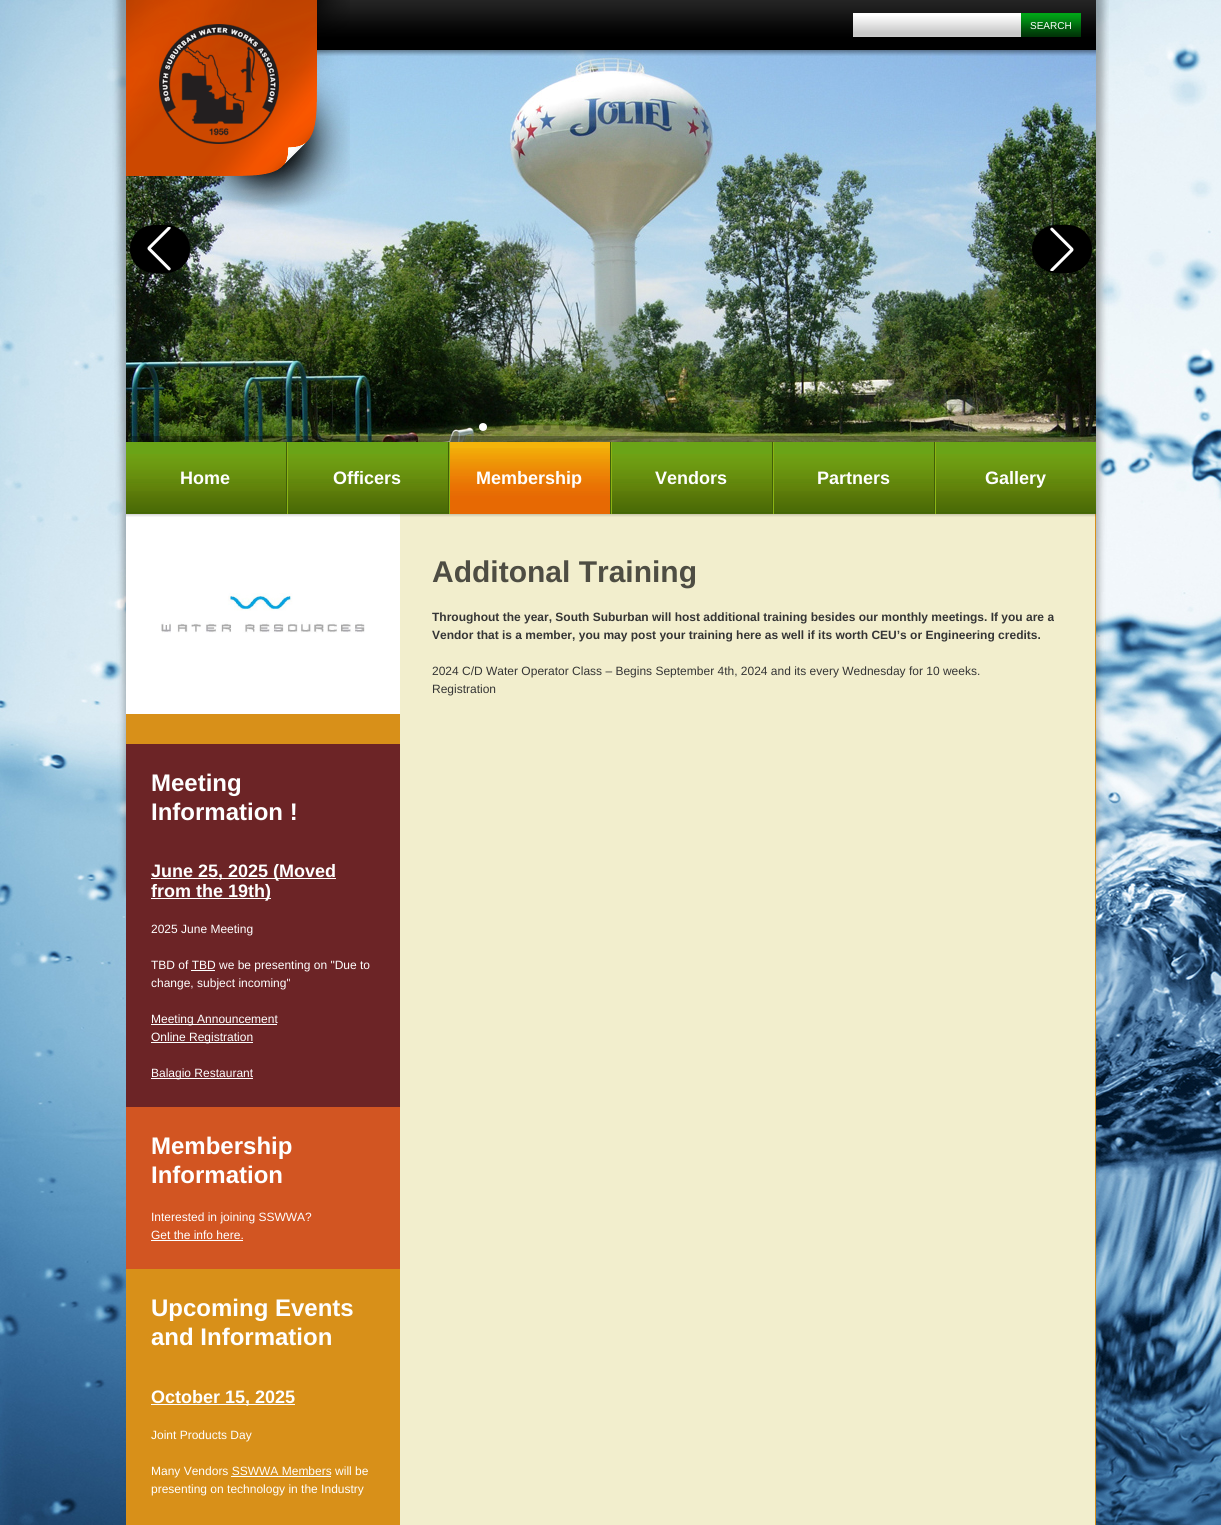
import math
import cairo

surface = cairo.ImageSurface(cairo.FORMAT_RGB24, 1221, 1525)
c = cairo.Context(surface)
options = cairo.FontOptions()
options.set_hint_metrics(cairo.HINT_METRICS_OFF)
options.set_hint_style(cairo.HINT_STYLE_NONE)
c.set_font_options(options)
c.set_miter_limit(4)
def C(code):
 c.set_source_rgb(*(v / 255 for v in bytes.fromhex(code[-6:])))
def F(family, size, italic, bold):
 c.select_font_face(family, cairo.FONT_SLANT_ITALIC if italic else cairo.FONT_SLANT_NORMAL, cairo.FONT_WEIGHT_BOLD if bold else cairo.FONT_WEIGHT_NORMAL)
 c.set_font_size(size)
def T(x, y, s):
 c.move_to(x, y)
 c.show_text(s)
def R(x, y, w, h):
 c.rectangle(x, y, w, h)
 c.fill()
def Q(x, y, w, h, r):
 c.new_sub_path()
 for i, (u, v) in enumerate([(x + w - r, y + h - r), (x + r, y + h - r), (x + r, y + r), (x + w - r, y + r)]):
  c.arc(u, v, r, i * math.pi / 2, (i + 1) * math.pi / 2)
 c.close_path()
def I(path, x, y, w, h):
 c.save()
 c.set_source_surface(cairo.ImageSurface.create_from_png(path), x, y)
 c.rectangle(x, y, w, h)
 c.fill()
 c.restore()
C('ffffff')
c.paint()
I('1.png',0,0,1221,1525)
I('2.png',112,0,997,898)
I('8.png',126,50,970,392)
I('5.png',317,0,779,56)
I('3.png',126,0,224,210)
I('4.png',159,24,120,120)
C('ffffff')
R(853,13,168,3)
I('6.png',853,16,168,21)
C('00a517')
R(1021,13,60,2)
I('7.png',1021,15,60,22)
F('Liberation Sans',10,0,0)
C('ffffff')
T(1030,29,'SEARCH')
C('000000')
Q(130,225,60,48,24)
c.fill()
I('9.png',147,227,24,44)
Q(1032,225,60,48,24)
c.fill()
I('10.png',1050,227,24,44)
C('ffffff')
c.arc(483,427,4,0,2 * math.pi)
c.fill()
c.set_source_rgba(0,0,0,0.2)
c.arc(499,427,4,0,2 * math.pi)
c.fill()
c.arc(515,427,4,0,2 * math.pi)
c.fill()
c.arc(531,427,4,0,2 * math.pi)
c.fill()
c.arc(547,427,4,0,2 * math.pi)
c.fill()
c.arc(563,427,4,0,2 * math.pi)
c.fill()
c.arc(579,427,4,0,2 * math.pi)
c.fill()
c.arc(595,427,4,0,2 * math.pi)
c.fill()
c.arc(611,427,4,0,2 * math.pi)
c.fill()
c.arc(627,427,4,0,2 * math.pi)
c.fill()
c.arc(643,427,4,0,2 * math.pi)
c.fill()
c.arc(659,427,4,0,2 * math.pi)
c.fill()
c.arc(675,427,4,0,2 * math.pi)
c.fill()
c.arc(691,427,4,0,2 * math.pi)
c.fill()
c.arc(707,427,4,0,2 * math.pi)
c.fill()
c.arc(723,427,4,0,2 * math.pi)
c.fill()
c.arc(739,427,4,0,2 * math.pi)
c.fill()
I('14.png',126,514,970,1011)
C('ffffff')
R(126,514,274,200)
I('11.png',126,436,970,81)
C('415f09')
R(286,442,1,72)
C('6aa417')
R(126,442,160,12)
I('12.png',126,454,160,60)
F('Liberation Sans',18,0,1)
C('ffffff')
T(180,484,'Home')
C('415f09')
R(448,442,1,72)
C('8ab413')
R(287,442,1,72)
C('6aa417')
R(288,442,160,12)
I('12.png',288,454,160,60)
C('ffffff')
T(333,484,'Officers')
C('415f09')
R(610,442,1,72)
C('8ab413')
R(449,442,1,72)
C('f4b40a')
R(450,442,160,6)
I('13.png',450,448,160,66)
C('ffffff')
T(476,484,'Membership')
C('415f09')
R(772,442,1,72)
C('8ab413')
R(611,442,1,72)
C('6aa417')
R(612,442,160,12)
I('12.png',612,454,160,60)
C('ffffff')
T(655,484,'Vendors')
C('415f09')
R(934,442,1,72)
C('8ab413')
R(773,442,1,72)
C('6aa417')
R(774,442,160,12)
I('12.png',774,454,160,60)
C('ffffff')
T(817,484,'Partners')
C('8ab413')
R(935,442,1,72)
C('6aa417')
R(936,442,160,12)
I('12.png',936,454,160,60)
C('ffffff')
T(985,484,'Gallery')
F('Liberation Sans',30,0,1)
C('4e4d43')
T(432,582,'Additonal Training')
F('Liberation Sans',12,0,1)
C('353535')
T(432,621,'Throughout the year, South Suburban will host additional training besides our monthly meetings. If you are a')
T(432,639,'Vendor that is a member, you may post your training here as well if its worth CEU’s or Engineering credits.')
F('Liberation Sans',12,0,0)
T(432,675,'2024 C/D Water Operator Class – Begins September 4th, 2024 and its every Wednesday for 10 weeks.')
T(432,693,'Registration')
I('15.png',161,593,204,40)
C('6c2426')
R(126,744,274,363)
F('Liberation Sans',24,0,1)
C('ffffff')
T(151,791,'Meeting')
T(151,820,'Information !')
R(151,878,185,1)
F('Liberation Sans',18,0,1)
T(151,877,'June 25, 2025 (Moved')
R(151,898,120,1)
T(151,897,'from the 19th)')
F('Liberation Sans',12,0,0)
T(151,933,'2025 June Meeting')
T(151,969,'TBD of TBD we be presenting on "Due to')
R(191,970,24,1)
T(151,987,'change, subject incoming"')
R(151,1024,126,1)
T(151,1023,'Meeting Announcement')
R(151,1042,102,1)
T(151,1041,'Online Registration')
R(151,1078,102,1)
T(151,1077,'Balagio Restaurant')
C('d25522')
R(126,1107,274,162)
F('Liberation Sans',24,0,1)
C('ffffff')
T(151,1154,'Membership')
T(151,1183,'Information')
F('Liberation Sans',12,0,0)
T(151,1221,'Interested in joining SSWWA?')
T(151,1239,'Get the info here.')
R(151,1240,92,1)
F('Liberation Sans',24,0,1)
T(151,1316,'Upcoming Events')
T(151,1345,'and Information')
R(151,1404,144,1)
F('Liberation Sans',18,0,1)
T(151,1403,'October 15, 2025')
F('Liberation Sans',12,0,0)
T(151,1439,'Joint Products Day')
T(151,1475,'Many Vendors SSWWA Members will be')
R(231,1476,100,1)
T(151,1493,'presenting on technology in the Industry')
surface.write_to_png('o.png')
